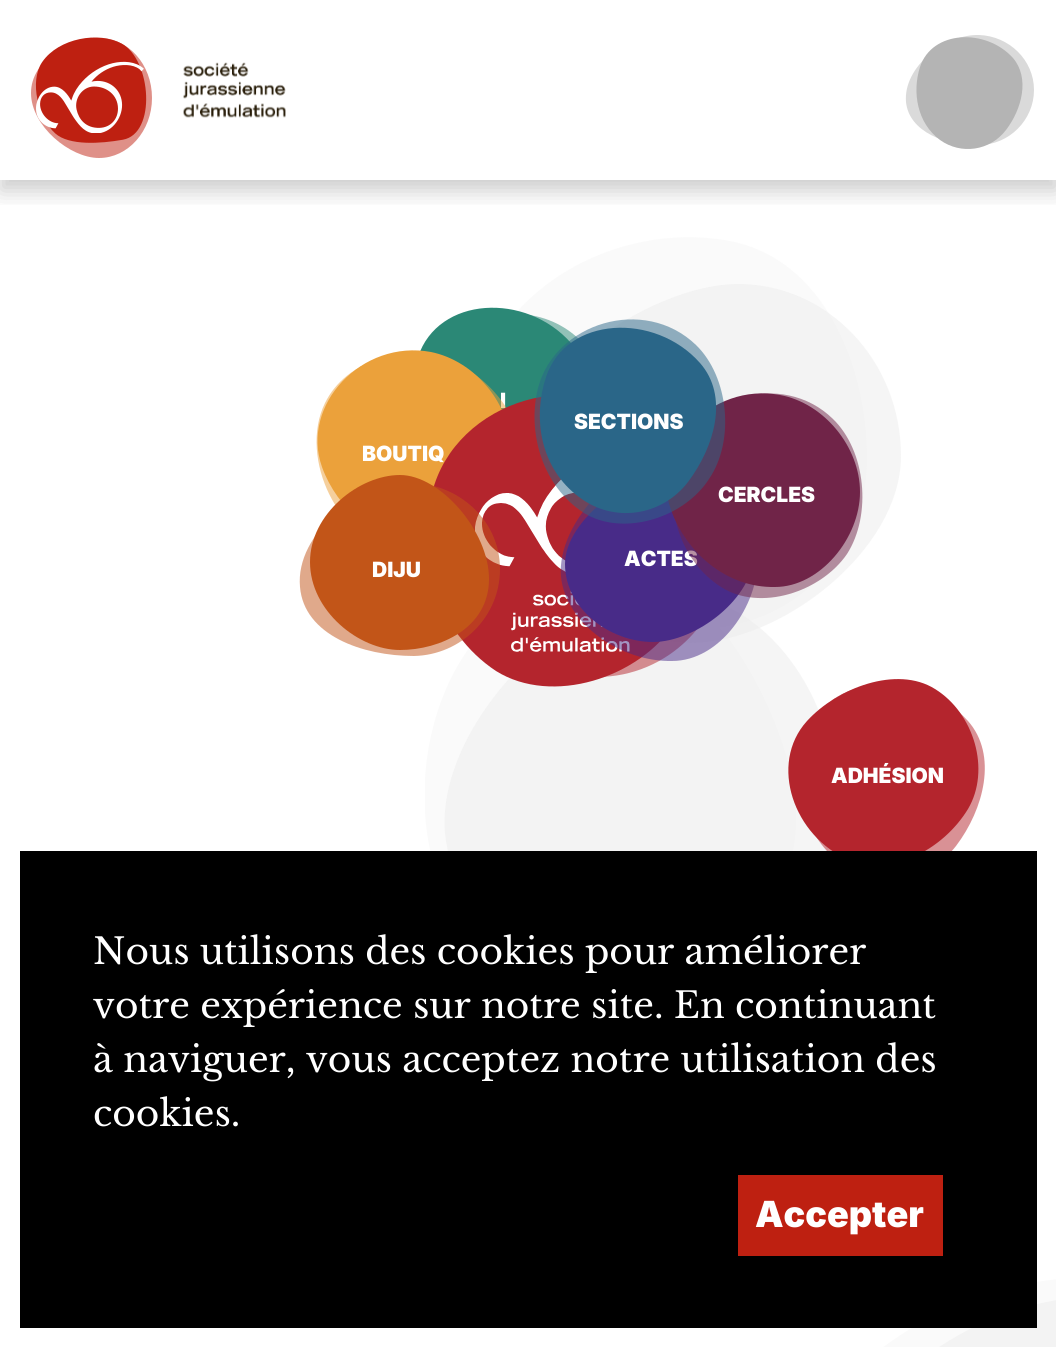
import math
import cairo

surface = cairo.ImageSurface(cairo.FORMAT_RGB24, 1056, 1347)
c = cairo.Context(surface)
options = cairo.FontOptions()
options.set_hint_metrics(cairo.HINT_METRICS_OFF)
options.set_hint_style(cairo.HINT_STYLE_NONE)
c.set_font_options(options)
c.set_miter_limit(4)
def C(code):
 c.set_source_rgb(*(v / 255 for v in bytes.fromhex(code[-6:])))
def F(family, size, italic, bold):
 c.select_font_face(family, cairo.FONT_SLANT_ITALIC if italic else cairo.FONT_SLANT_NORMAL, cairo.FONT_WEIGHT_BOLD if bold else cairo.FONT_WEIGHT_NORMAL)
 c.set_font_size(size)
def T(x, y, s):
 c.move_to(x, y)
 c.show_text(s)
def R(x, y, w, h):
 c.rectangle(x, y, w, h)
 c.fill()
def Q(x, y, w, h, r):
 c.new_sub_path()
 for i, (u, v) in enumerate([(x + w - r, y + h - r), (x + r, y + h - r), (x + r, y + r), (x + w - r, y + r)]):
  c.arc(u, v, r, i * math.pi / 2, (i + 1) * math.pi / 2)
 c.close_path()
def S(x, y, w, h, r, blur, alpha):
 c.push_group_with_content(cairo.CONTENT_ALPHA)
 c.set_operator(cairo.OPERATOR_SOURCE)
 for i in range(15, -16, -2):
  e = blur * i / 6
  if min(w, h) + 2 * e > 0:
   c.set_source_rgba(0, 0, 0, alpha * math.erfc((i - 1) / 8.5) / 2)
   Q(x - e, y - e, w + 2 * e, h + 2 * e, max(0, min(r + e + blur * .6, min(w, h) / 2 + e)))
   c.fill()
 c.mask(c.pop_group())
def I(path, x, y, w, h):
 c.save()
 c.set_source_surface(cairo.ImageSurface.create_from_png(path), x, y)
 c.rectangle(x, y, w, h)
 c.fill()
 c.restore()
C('ffffff')
c.paint()
I('1.png',425,620,371,231)
c.set_source_rgba(0.922,0.922,0.922,0.5)
c.set_fill_rule(cairo.FILL_RULE_EVEN_ODD)
c.new_path()
c.move_to(673,593)
c.curve_to(768,596,836,701,836,795)
c.curve_to(836,890,761,999,666,1001)
c.curve_to(564,1002,454,927,445,833)
c.curve_to(436,725,568,589,673,593)
c.close_path()
c.fill()
c.set_source_rgba(0.922,0.922,0.922,0.25)
c.new_path()
c.move_to(730,241)
c.curve_to(823,259,867,364,867,459)
c.curve_to(867,554,793,628,698,629)
c.curve_to(595,631,514,557,482,467)
c.curve_to(436,336,584,214,730,241)
c.close_path()
c.fill()
c.set_source_rgba(0.922,0.922,0.922,0.5)
c.new_path()
c.move_to(738,284)
c.curve_to(828,284,901,361,901,456)
c.curve_to(901,551,780,643,691,643)
c.curve_to(601,643,505,574,505,479)
c.curve_to(505,384,648,284,738,284)
c.close_path()
c.fill()
C('fafafa')
c.new_path()
c.move_to(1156,1283)
c.curve_to(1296,1309,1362,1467,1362,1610)
c.curve_to(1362,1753,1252,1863,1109,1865)
c.curve_to(955,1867,833,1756,785,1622)
c.curve_to(716,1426,938,1242,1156,1283)
c.close_path()
c.fill()
C('f3f3f3')
c.new_path()
c.move_to(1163,1301)
c.curve_to(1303,1327,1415,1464,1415,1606)
c.curve_to(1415,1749,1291,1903,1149,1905)
c.curve_to(996,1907,869,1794,821,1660)
c.curve_to(753,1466,946,1260,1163,1301)
c.close_path()
c.fill()
c.save()
c.set_fill_rule(cairo.FILL_RULE_WINDING)
c.rectangle(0,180,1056,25)
c.clip()
C('000000')
S(0,11,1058,180,0,11,.2)
c.restore()
C('df9088')
c.new_path()
c.move_to(99,38)
c.curve_to(128,38,152,64,152,98)
c.curve_to(152,131,128,158,99,158)
c.curve_to(70,158,31,126,31,93)
c.curve_to(31,60,70,38,99,38)
c.close_path()
c.fill()
I('2.png',35,37,112,106)
I('3.png',36,61,108,72)
I('4.png',183,62,103,56)
C('dadada')
c.new_path()
c.move_to(979,35)
c.curve_to(1009,36,1034,60,1034,90)
c.curve_to(1034,120,1009,145,979,145)
c.curve_to(946,146,909,132,906,102)
c.curve_to(903,67,945,34,979,35)
c.close_path()
c.fill()
C('b4b4b4')
c.new_path()
c.move_to(1013,58)
c.curve_to(1030,78,1022,109,1006,130)
c.curve_to(990,151,961,155,940,140)
c.curve_to(917,123,912,92,920,67)
c.curve_to(932,30,986,28,1013,58)
c.close_path()
c.fill()
c.set_source_rgba(0.169,0.533,0.463,0.5)
c.new_path()
c.move_to(519,314)
c.curve_to(567,316,605,353,605,400)
c.curve_to(605,448,567,486,519,487)
c.curve_to(468,488,410,466,406,419)
c.curve_to(401,364,466,312,519,314)
c.close_path()
c.fill()
C('2b8876')
c.new_path()
c.move_to(571,343)
c.curve_to(600,375,587,426,560,461)
c.curve_to(533,497,485,503,450,477)
c.curve_to(413,449,404,399,418,357)
c.curve_to(438,296,526,292,571,343)
c.close_path()
c.fill()
F('Inter Black',21,0,0)
C('ffffff')
T(500,408,'I')
c.set_source_rgba(0.922,0.631,0.231,0.5)
c.new_path()
c.move_to(325,403)
c.curve_to(346,360,403,344,448,360)
c.curve_to(493,376,534,431,519,476)
c.curve_to(502,524,448,557,401,551)
c.curve_to(339,544,298,458,325,403)
c.close_path()
c.fill()
C('eba13b')
c.new_path()
c.move_to(431,352)
c.curve_to(475,361,511,404,511,450)
c.curve_to(511,495,472,544,426,545)
c.curve_to(378,545,337,509,322,467)
c.curve_to(300,405,362,339,431,352)
c.close_path()
c.fill()
C('ffffff')
T(362,461,'BOUTIQ')
c.set_source_rgba(0.706,0.145,0.176,0.5)
c.new_path()
c.move_to(597,418)
c.curve_to(668,421,726,476,726,548)
c.curve_to(726,619,668,677,597,677)
c.curve_to(520,678,433,646,426,575)
c.curve_to(419,493,517,415,597,418)
c.close_path()
c.fill()
C('b4252d')
c.new_path()
c.move_to(657,431)
c.curve_to(704,477,712,568,675,623)
c.curve_to(639,678,552,706,496,671)
c.curve_to(437,632,416,557,432,493)
c.curve_to(455,400,583,360,657,431)
c.close_path()
c.fill()
I('5.png',475,479,155,173)
c.set_source_rgba(0.282,0.169,0.533,0.5)
c.new_path()
c.move_to(676,456)
c.curve_to(723,458,758,510,758,558)
c.curve_to(758,606,720,661,672,661)
c.curve_to(621,662,566,624,561,577)
c.curve_to(556,522,623,454,676,456)
c.close_path()
c.fill()
C('482b88')
c.new_path()
c.move_to(676,471)
c.curve_to(719,471,754,507,754,553)
c.curve_to(754,598,696,642,653,642)
c.curve_to(610,642,565,609,565,564)
c.curve_to(565,519,633,471,676,471)
c.close_path()
c.fill()
C('ffffff')
T(624,566,'ACTES')
c.set_source_rgba(0.439,0.141,0.282,0.5)
c.new_path()
c.move_to(833,419)
c.curve_to(866,451,872,515,847,554)
c.curve_to(821,592,760,612,721,587)
c.curve_to(679,560,665,507,676,462)
c.curve_to(692,397,782,369,833,419)
c.close_path()
c.fill()
C('702448')
c.new_path()
c.move_to(780,395)
c.curve_to(824,403,860,447,860,492)
c.curve_to(860,538,820,587,775,587)
c.curve_to(726,588,686,552,671,510)
c.curve_to(649,448,711,382,780,395)
c.close_path()
c.fill()
C('ffffff')
T(718,502,'CERCLES')
c.set_source_rgba(0.165,0.4,0.533,0.5)
c.new_path()
c.move_to(696,345)
c.curve_to(729,377,735,441,709,479)
c.curve_to(684,518,623,537,584,513)
c.curve_to(542,486,527,432,538,388)
c.curve_to(555,323,644,295,696,345)
c.close_path()
c.fill()
C('2a6688')
c.new_path()
c.move_to(700,363)
c.curve_to(729,396,715,446,688,482)
c.curve_to(661,517,613,523,579,497)
c.curve_to(541,469,532,419,546,377)
c.curve_to(566,316,655,312,700,363)
c.close_path()
c.fill()
C('ffffff')
T(574,429,'SECTIONS')
c.set_source_rgba(0.761,0.333,0.094,0.5)
c.new_path()
c.move_to(414,483)
c.curve_to(461,485,500,522,500,569)
c.curve_to(500,617,461,655,414,656)
c.curve_to(362,656,304,635,300,587)
c.curve_to(295,533,361,481,414,483)
c.close_path()
c.fill()
C('c25518')
c.new_path()
c.move_to(400,475)
c.curve_to(440,475,489,531,489,579)
c.curve_to(489,628,440,650,400,650)
c.curve_to(359,650,310,611,310,562)
c.curve_to(310,514,359,475,400,475)
c.close_path()
c.fill()
C('ffffff')
T(372,577,'DIJU')
c.set_source_rgba(0.706,0.145,0.176,0.5)
c.new_path()
c.move_to(968,721)
c.curve_to(998,755,984,809,956,846)
c.curve_to(927,883,877,890,840,863)
c.curve_to(801,833,791,780,806,736)
c.curve_to(827,672,920,668,968,721)
c.close_path()
c.fill()
C('b4252d')
c.new_path()
c.move_to(807,721)
c.curve_to(837,688,897,665,935,689)
c.curve_to(974,713,991,770,968,809)
c.curve_to(943,850,891,877,849,860)
c.curve_to(794,837,768,764,807,721)
c.close_path()
c.fill()
C('ffffff')
T(831,783,'ADHÉSION')
C('000000')
R(20,851,1017,477)
F('Libre Baskerville',36,0,0)
C('ffffff')
T(93,964,'Nous utilisons des cookies pour améliorer')
T(93,1018,'votre expérience sur notre site. En continuant')
T(93,1072,'à naviguer, vous acceptez notre utilisation des')
T(93,1126,'cookies.')
C('be2011')
R(738,1175,205,81)
F('Inter Black',36,0,0)
C('ffffff')
T(755,1227,'Accepter')
surface.write_to_png('o.png')
